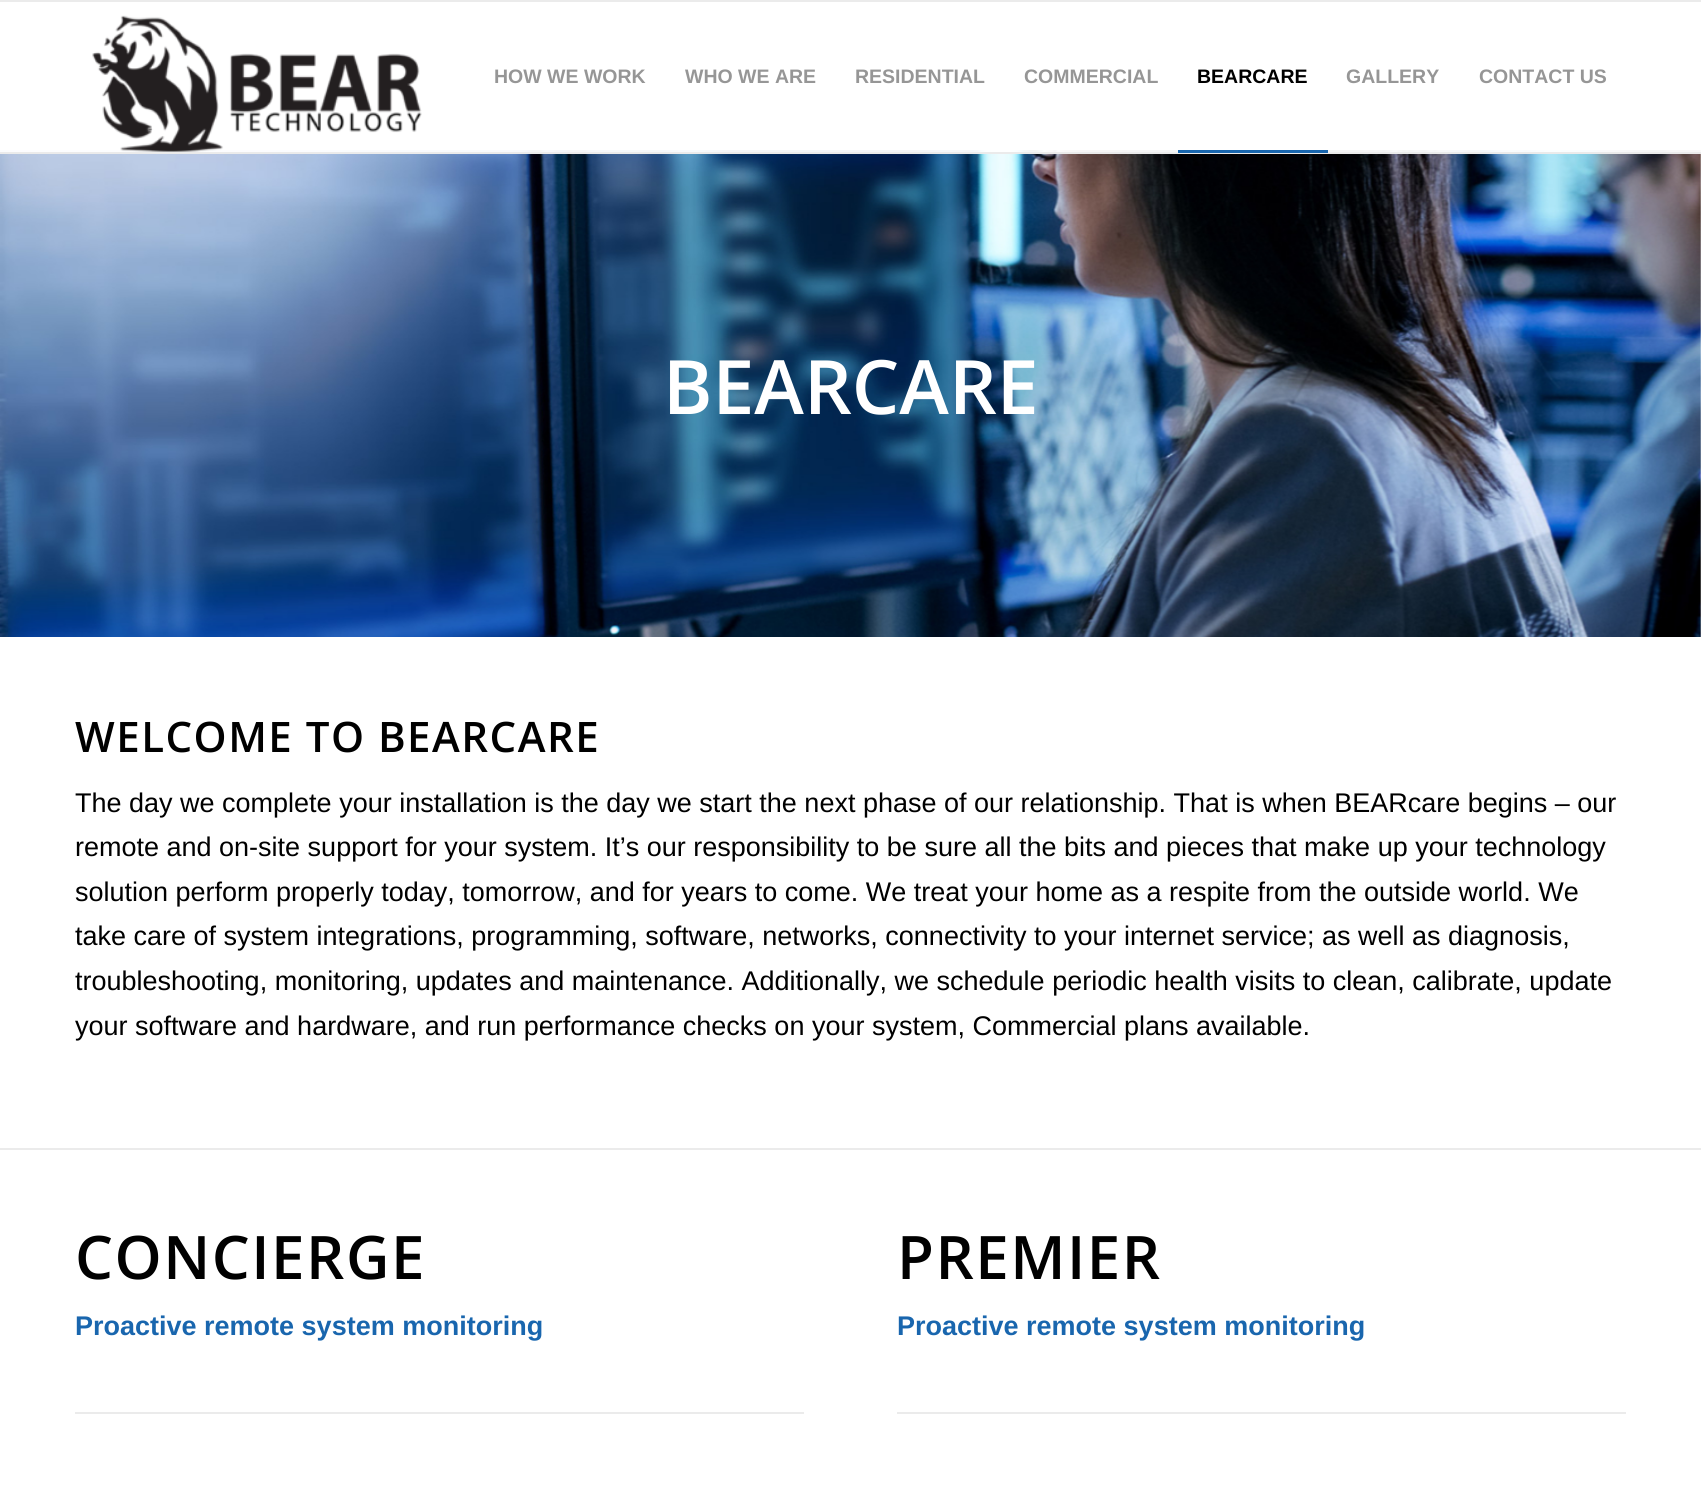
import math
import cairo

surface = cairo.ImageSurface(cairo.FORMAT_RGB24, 1701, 1490)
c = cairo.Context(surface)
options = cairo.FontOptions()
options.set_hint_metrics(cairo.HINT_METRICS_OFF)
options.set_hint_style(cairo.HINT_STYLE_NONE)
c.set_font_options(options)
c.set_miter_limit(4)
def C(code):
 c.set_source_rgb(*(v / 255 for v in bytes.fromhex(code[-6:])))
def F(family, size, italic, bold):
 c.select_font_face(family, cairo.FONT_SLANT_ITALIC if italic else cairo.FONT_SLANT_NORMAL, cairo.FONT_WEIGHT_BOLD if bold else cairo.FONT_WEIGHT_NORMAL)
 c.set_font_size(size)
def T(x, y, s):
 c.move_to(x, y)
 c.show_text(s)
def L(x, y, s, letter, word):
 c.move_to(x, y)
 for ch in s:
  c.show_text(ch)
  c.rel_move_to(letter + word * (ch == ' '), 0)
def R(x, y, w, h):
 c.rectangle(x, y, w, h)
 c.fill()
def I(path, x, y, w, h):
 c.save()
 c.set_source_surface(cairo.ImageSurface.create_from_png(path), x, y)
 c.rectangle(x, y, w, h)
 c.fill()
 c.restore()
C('ffffff')
c.paint()
C('ebebeb')
R(0,0,1701,2)
I('2.png',0,150,1701,487)
R(0,152,1701,2)
c.set_source_rgba(1,1,1,0.95)
R(0,150,1701,2)
I('1.png',92,15,330,137)
F('Liberation Sans',19.5,0,1)
C('969696')
T(494,83,'HOW WE WORK')
T(685,83,'WHO WE ARE')
T(855,83,'RESIDENTIAL')
T(1024,83,'COMMERCIAL')
C('000000')
T(1197,83,'BEARCARE')
C('1966ae')
R(1178,150,150,3)
C('969696')
T(1346,83,'GALLERY')
T(1479,83,'CONTACT US')
F('Open Sans SemiBold',75,0,0)
C('ffffff')
T(663,414,'BEARCARE')
F('Open Sans SemiBold',42,0,0)
C('000000')
L(75,752,'WELCOME TO BEARCARE',1.5,0)
F('Liberation Sans',27,0,0)
T(75,812,'The day we complete your installation is the day we start the next phase of our relationship. That is when BEARcare begins – our')
T(75,856,'remote and on-site support for your system. It’s our responsibility to be sure all the bits and pieces that make up your technology')
T(75,901,'solution perform properly today, tomorrow, and for years to come. We treat your home as a respite from the outside world. We')
T(75,945,'take care of system integrations, programming, software, networks, connectivity to your internet service; as well as diagnosis,')
T(75,990,'troubleshooting, monitoring, updates and maintenance. Additionally, we schedule periodic health visits to clean, calibrate, update')
T(75,1035,'your software and hardware, and run performance checks on your system, Commercial plans available.')
C('ebebeb')
R(0,1148,1701,2)
F('Open Sans SemiBold',60,0,0)
C('000000')
L(75,1279,'CONCIERGE',1.5,0)
F('Liberation Sans',27,0,1)
C('1966ae')
T(75,1335,'Proactive remote system monitoring')
C('ebebeb')
R(75,1412,729,2)
F('Open Sans SemiBold',60,0,0)
C('000000')
L(897,1279,'PREMIER',1.5,0)
F('Liberation Sans',27,0,1)
C('1966ae')
T(897,1335,'Proactive remote system monitoring')
C('ebebeb')
R(897,1412,729,2)
surface.write_to_png('o.png')
